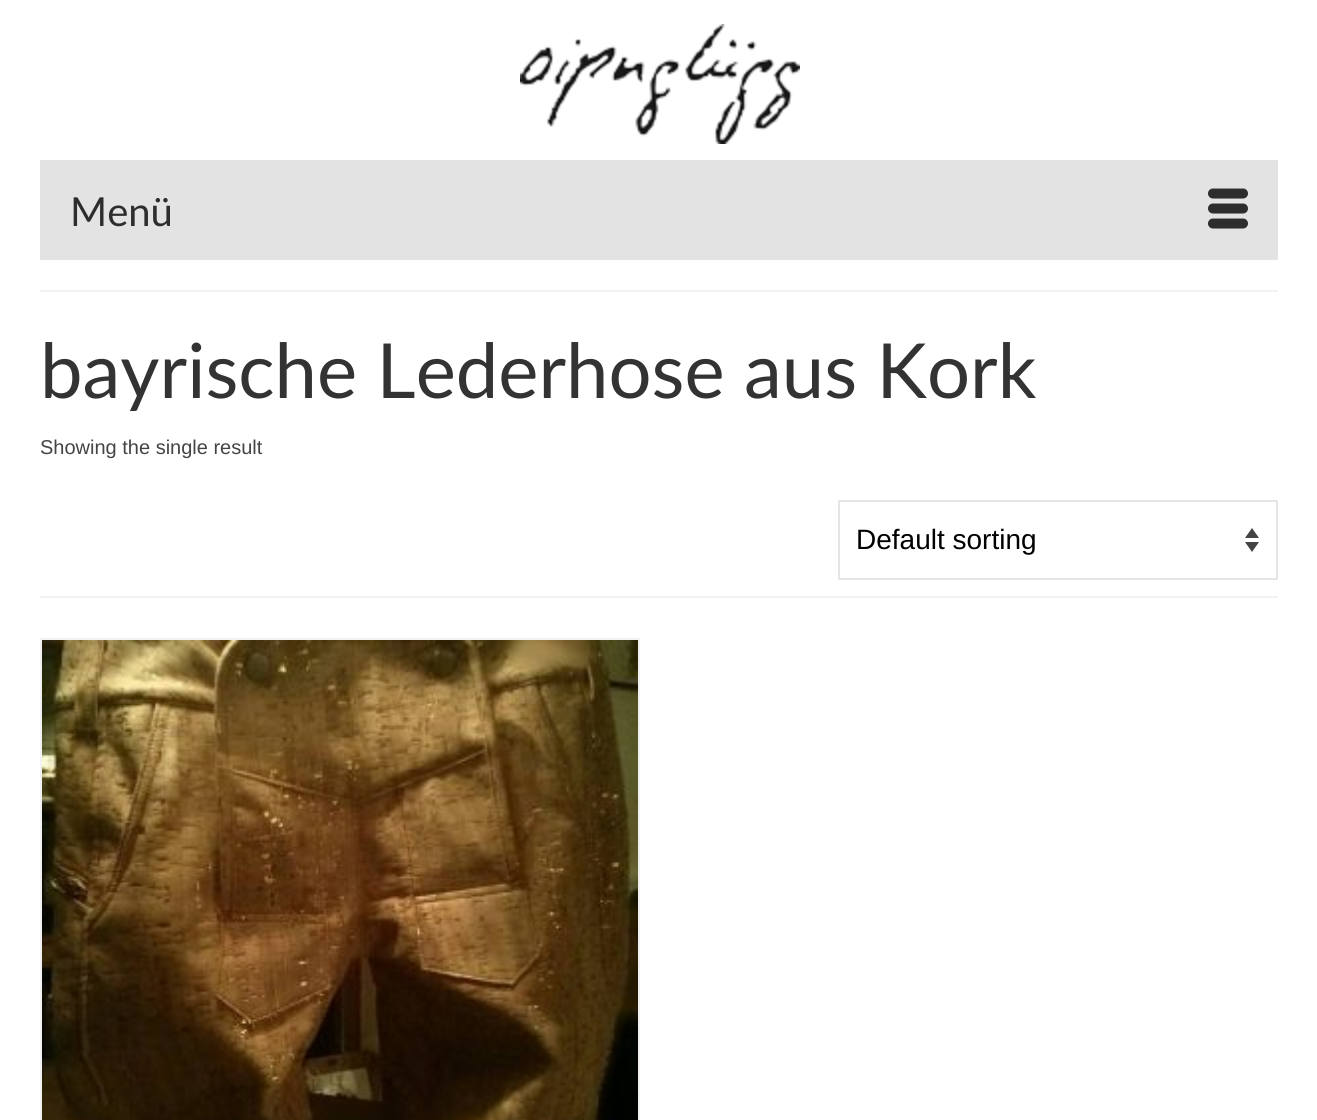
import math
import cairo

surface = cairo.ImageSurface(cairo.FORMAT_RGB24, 1317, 1120)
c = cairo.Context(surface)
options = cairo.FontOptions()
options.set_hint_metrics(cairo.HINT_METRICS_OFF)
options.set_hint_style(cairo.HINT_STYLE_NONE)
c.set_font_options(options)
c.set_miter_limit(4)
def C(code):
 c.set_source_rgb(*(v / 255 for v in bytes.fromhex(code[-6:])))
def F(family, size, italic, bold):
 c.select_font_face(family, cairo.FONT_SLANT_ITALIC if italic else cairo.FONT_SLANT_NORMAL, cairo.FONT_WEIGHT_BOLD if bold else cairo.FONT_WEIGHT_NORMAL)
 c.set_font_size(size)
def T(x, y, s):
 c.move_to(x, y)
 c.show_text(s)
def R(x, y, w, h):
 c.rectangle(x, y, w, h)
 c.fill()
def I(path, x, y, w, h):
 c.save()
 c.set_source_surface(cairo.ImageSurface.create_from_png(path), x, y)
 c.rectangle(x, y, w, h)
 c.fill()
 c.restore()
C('ffffff')
c.paint()
I('1.png',520,24,280,120)
C('e3e3e3')
R(40,160,1238,100)
F('Lato',40,0,0)
C('2d2d2d')
T(70,226,'Menü')
I('2.png',1208,188,40,41)
C('f2f2f2')
R(40,290,1238,2)
R(40,596,1238,2)
F('Lato',76,0,0)
C('333333')
T(40,398,'bayrische Lederhose aus Kork')
F('Liberation Sans',20,0,0)
C('444444')
T(40,454,'Showing the single result')
c.new_path()
c.move_to(1245,538)
c.line_to(1252,528)
c.line_to(1259,538)
c.close_path()
c.move_to(1259,542)
c.line_to(1252,552)
c.line_to(1245,542)
c.close_path()
c.fill()
c.rectangle(839,501,438,78)
C('e6e6e6')
c.stroke()
F('Liberation Sans',28,0,0)
C('000000')
T(856,549,'Default sorting')
c.rectangle(41,639,598,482)
C('f2f2f2')
c.stroke()
I('3.png',42,640,596,480)
surface.write_to_png('o.png')
